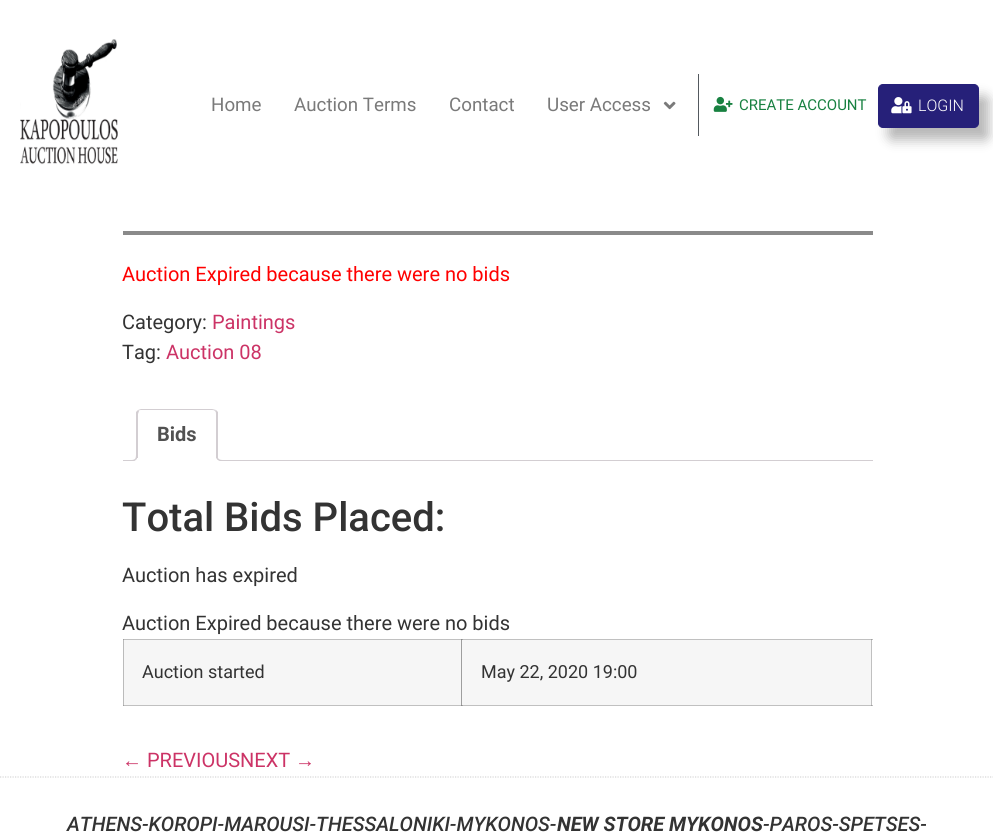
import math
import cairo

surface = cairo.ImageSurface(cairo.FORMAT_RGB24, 993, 835)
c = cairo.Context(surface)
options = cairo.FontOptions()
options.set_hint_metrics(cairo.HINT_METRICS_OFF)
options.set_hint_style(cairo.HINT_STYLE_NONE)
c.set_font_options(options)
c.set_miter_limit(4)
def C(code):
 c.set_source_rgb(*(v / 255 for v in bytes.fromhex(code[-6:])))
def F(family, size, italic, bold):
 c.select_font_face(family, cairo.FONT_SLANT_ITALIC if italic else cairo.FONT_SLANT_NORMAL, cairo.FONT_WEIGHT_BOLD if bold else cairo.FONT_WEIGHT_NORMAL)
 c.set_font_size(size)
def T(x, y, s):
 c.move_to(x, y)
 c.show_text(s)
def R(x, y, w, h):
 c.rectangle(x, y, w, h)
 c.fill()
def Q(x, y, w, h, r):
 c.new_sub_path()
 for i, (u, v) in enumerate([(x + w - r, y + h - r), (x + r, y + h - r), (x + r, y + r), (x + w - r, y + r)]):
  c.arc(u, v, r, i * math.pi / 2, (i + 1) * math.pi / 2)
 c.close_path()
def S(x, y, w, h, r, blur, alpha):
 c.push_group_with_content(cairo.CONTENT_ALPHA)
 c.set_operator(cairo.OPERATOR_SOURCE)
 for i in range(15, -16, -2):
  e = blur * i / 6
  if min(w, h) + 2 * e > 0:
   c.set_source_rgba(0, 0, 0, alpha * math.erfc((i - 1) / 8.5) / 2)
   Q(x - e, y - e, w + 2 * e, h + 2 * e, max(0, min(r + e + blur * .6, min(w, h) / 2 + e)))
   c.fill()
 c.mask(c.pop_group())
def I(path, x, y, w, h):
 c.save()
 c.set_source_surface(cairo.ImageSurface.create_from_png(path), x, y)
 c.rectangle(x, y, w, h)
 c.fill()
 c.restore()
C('ffffff')
c.paint()
C('c0c0c0')
R(123,705,750,1)
C('a0a0a0')
R(123,705,1,1)
C('c0c0c0')
R(123,639,340,1)
C('a0a0a0')
R(123,639,1,1)
R(461,705,2,1)
C('888888')
R(461,705,1,1)
C('c0c0c0')
R(871,639,1,67)
C('a0a0a0')
R(871,705,1,1)
I('1.png',20,39,98,126)
F('Roboto',18.75,0,0)
C('7a7a7a')
T(211,111,'Home')
T(294,111,'Auction Terms')
T(449,111,'Contact')
T(547,111,'User Access')
I('2.png',663,101,13,9)
C('54595f')
R(698,74,1,62)
I('3.png',713,96,20,16)
F('Roboto',15,0,0)
C('188141')
T(739,110,'CREATE ACCOUNT')
C('000000')
S(888,96,101,44,5,6,.28)
C('262079')
Q(878.5,84.5,100,43,4.5)
c.fill_preserve()
c.set_line_width(1)
c.stroke()
I('4.png',891,97,21,17)
F('Roboto Light',16,0,0)
C('ffffff')
T(918,111,'LOGIN')
C('8a8a8a')
R(123,231,750,4)
F('Roboto',20,0,0)
C('ff0000')
T(122,281,'Auction Expired because there were no bids')
C('333333')
T(122,329,'Category:')
C('cc3366')
T(212,329,'Paintings')
C('333333')
T(122,359,'Tag:')
C('cc3366')
T(166,359,'Auction 08')
C('d3ced2')
R(123,460,750,1)
C('ffffff')
c.new_path()
c.move_to(141,409)
c.line_to(213,409)
c.curve_to(216,409,218,411,218,414)
c.line_to(218,461)
c.line_to(136,461)
c.line_to(136,414)
c.curve_to(136,411,138,409,141,409)
c.close_path()
c.fill()
C('d3ced2')
c.new_path()
c.move_to(141,409)
c.line_to(138,410)
c.line_to(139,411)
c.curve_to(139,410,140,410,141,410)
c.line_to(212,410)
c.curve_to(213,410,214,410,215,411)
c.line_to(216,410)
c.line_to(212,409)
c.close_path()
c.fill()
c.new_path()
c.move_to(216,410)
c.line_to(218,412)
c.line_to(218,461)
c.line_to(216,460)
c.line_to(216,414)
c.curve_to(216,413,216,412,215,411)
c.close_path()
c.fill()
C('ffffff')
c.new_path()
c.move_to(217,461)
c.line_to(136,461)
c.line_to(138,460)
c.line_to(216,460)
c.close_path()
c.fill()
C('d3ced2')
c.new_path()
c.move_to(136,412)
c.line_to(138,410)
c.line_to(139,411)
c.line_to(138,414)
c.line_to(138,460)
c.line_to(136,461)
c.close_path()
c.fill()
F('Roboto',20,0,1)
C('515151')
T(157,441,'Bids')
c.save()
c.rectangle(123,409,750,52)
c.clip()
C('ffffff')
c.new_path()
c.move_to(134,461)
c.line_to(134,464)
c.curve_to(138,464,140,462,140,458)
c.line_to(137,458)
c.curve_to(136.5,459.5,135.5,460.5,134,461)
c.close_path()
c.fill()
c.restore()
C('d3ced2')
c.set_fill_rule(cairo.FILL_RULE_EVEN_ODD)
c.new_path()
c.move_to(131,455)
c.line_to(137.5,455)
c.curve_to(137.5,459.5,135.5,461,131,461)
c.close_path()
c.move_to(131,455)
c.line_to(136,455)
c.curve_to(136,458.5,135,460,131,460)
c.close_path()
c.fill()
c.save()
c.set_fill_rule(cairo.FILL_RULE_WINDING)
c.rectangle(123,409,750,52)
c.clip()
C('ffffff')
c.new_path()
c.move_to(214,458)
c.curve_to(214,462,216,464,220,464)
c.line_to(220,461)
c.curve_to(218.5,460.5,217,459.5,216.5,458)
c.close_path()
c.fill()
c.restore()
c.new_path()
c.move_to(216,455)
c.line_to(222.5,455)
c.line_to(222.5,461)
c.curve_to(219.5,461,216,460,216,456)
c.close_path()
c.move_to(217.5,455)
c.line_to(222.5,455)
c.line_to(222.5,460)
c.curve_to(220,460,217.5,459,217.5,456)
c.close_path()
c.fill()
F('Roboto Medium',40,0,0)
C('333333')
T(122,531,'Total Bids Placed:')
F('Roboto',20,0,0)
T(122,582,'Auction has expired')
T(122,630,'Auction Expired because there were no bids')
C('f6f6f6')
R(124,640,337,65)
C('bbbbbb')
R(123,640,1,65)
F('Roboto',18,0,0)
C('333333')
T(142,678,'Auction started')
C('f6f6f6')
R(462,640,409,65)
C('9e9e9e')
R(461,640,1,65)
C('c0c0c0')
R(461,639,412,1)
C('a0a0a0')
R(461,639,2,1)
C('888888')
R(461,639,1,1)
C('a0a0a0')
R(871,639,1,1)
C('333333')
T(481,678,'May 22, 2020 19:00')
F('Liberation Sans',20,0,0)
C('cc3366')
T(122,767,'←')
F('Roboto',20,0,0)
T(147,767,'PREVIOUSNEXT')
F('Liberation Sans',20,0,0)
T(295,767,'→')
c.new_path()
c.move_to(0,777)
c.line_to(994,777)
C('d6d6d6')
c.set_line_width(1.2)
c.set_dash([1.25,1.25])
c.stroke()
F('Roboto Medium',20,1,0)
C('333333')
T(67,831,'ATHENS-KOROPI-MAROUSI-THESSALONIKI-MYKONOS-')
F('Roboto',20,1,1)
T(557,831,'NEW STORE MYKONOS')
F('Roboto Medium',20,1,0)
T(763,831,'-PAROS-SPETSES-')
surface.write_to_png('o.png')
